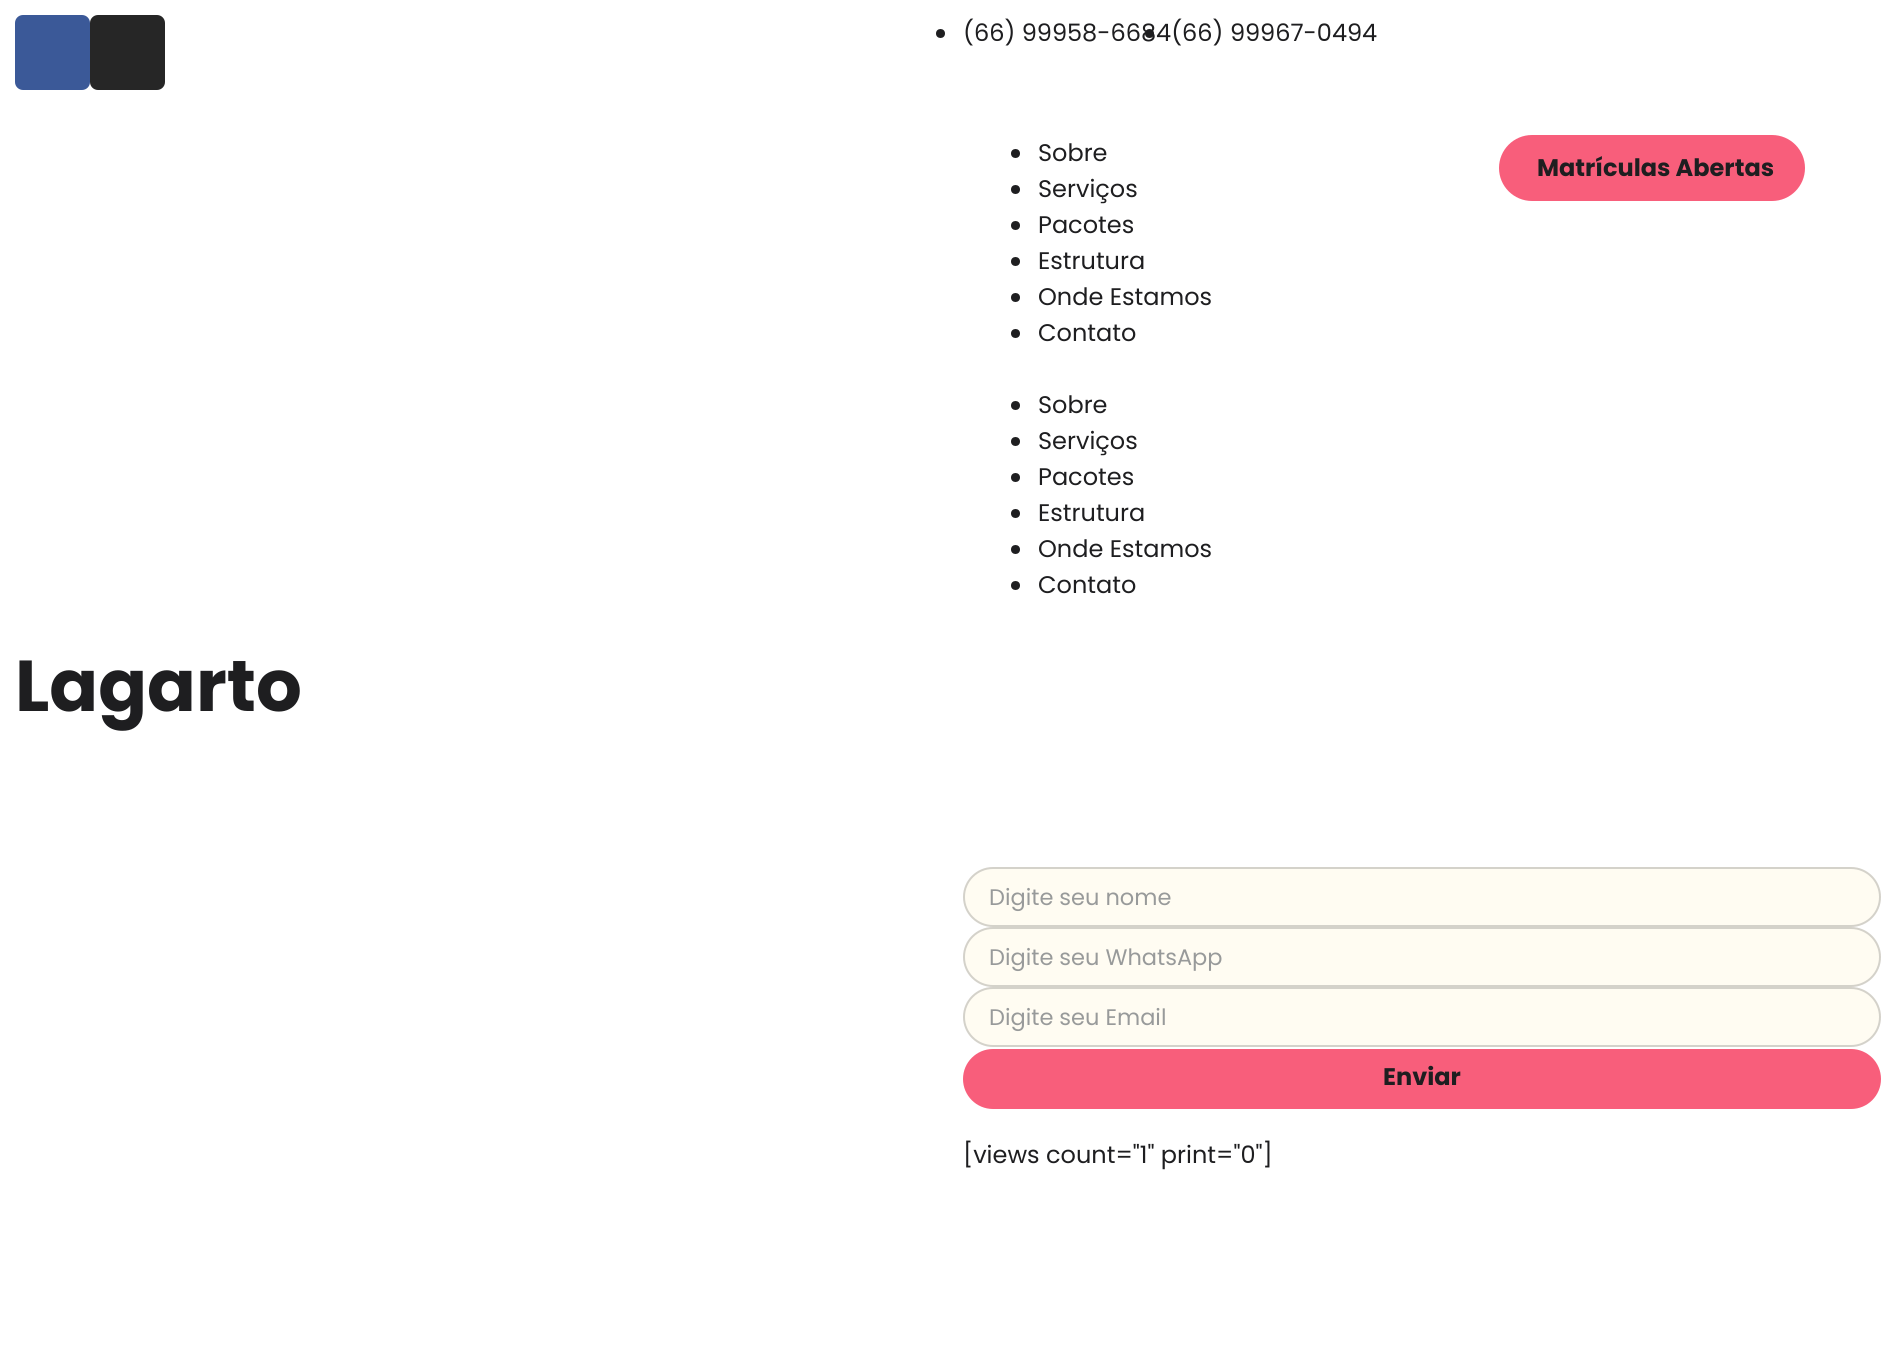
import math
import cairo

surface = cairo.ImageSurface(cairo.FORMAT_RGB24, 1895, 1370)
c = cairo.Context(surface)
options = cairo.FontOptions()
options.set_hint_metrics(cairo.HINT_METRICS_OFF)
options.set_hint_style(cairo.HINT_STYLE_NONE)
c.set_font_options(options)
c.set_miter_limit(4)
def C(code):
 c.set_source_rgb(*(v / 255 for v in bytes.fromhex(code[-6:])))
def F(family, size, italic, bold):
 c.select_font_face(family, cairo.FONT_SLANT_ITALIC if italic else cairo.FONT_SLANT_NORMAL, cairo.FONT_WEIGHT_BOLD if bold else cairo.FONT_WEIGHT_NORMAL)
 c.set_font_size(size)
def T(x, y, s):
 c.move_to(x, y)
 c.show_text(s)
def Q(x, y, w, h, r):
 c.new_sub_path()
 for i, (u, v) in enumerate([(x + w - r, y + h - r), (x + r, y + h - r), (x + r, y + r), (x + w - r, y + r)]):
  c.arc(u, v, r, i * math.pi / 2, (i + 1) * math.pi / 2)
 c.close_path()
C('ffffff')
c.paint()
C('3b5998')
Q(15,15,75,75,8)
c.fill()
C('262626')
Q(90,15,75,75,8)
c.fill()
C('1e1e20')
c.arc(940.5,33.5,4.5,0,2 * math.pi)
c.fill()
F('Poppins',24,0,0)
T(963,41,'(66) 99958-6684(66) 99967-0494')
c.new_path()
c.arc(1149.5,33.5,4.5,0,2 * math.pi)
c.fill()
c.arc(1015.5,153.5,4.5,0,2 * math.pi)
c.fill()
T(1038,161,'Sobre')
c.new_path()
c.arc(1015.5,189.5,4.5,0,2 * math.pi)
c.fill()
T(1038,197,'Serviços')
c.new_path()
c.arc(1015.5,225.5,4.5,0,2 * math.pi)
c.fill()
T(1038,233,'Pacotes')
c.new_path()
c.arc(1015.5,261.5,4.5,0,2 * math.pi)
c.fill()
T(1038,269,'Estrutura')
c.new_path()
c.arc(1015.5,297.5,4.5,0,2 * math.pi)
c.fill()
T(1038,305,'Onde Estamos')
c.new_path()
c.arc(1015.5,333.5,4.5,0,2 * math.pi)
c.fill()
T(1038,341,'Contato')
c.new_path()
c.arc(1015.5,405.5,4.5,0,2 * math.pi)
c.fill()
T(1038,413,'Sobre')
c.new_path()
c.arc(1015.5,441.5,4.5,0,2 * math.pi)
c.fill()
T(1038,449,'Serviços')
c.new_path()
c.arc(1015.5,477.5,4.5,0,2 * math.pi)
c.fill()
T(1038,485,'Pacotes')
c.new_path()
c.arc(1015.5,513.5,4.5,0,2 * math.pi)
c.fill()
T(1038,521,'Estrutura')
c.new_path()
c.arc(1015.5,549.5,4.5,0,2 * math.pi)
c.fill()
T(1038,557,'Onde Estamos')
c.new_path()
c.arc(1015.5,585.5,4.5,0,2 * math.pi)
c.fill()
T(1038,593,'Contato')
C('f85e7b')
Q(1499,135,306,66,33)
c.fill()
F('Poppins',24,0,1)
C('1e1e20')
T(1537,176,'Matrículas Abertas')
F('Poppins',72,0,1)
T(15,711,'Lagarto')
C('fffcf2')
Q(963,867,918,60,30)
c.fill()
Q(964,868,916,58,29)
c.set_source_rgba(0.118,0.118,0.125,0.19)
c.stroke()
F('Poppins',22.5,0,0)
C('989a9a')
T(989,905,'Digite seu nome')
C('fffcf2')
Q(963,927,918,60,30)
c.fill()
Q(964,928,916,58,29)
c.set_source_rgba(0.118,0.118,0.125,0.19)
c.stroke()
C('989a9a')
T(989,965,'Digite seu WhatsApp')
C('fffcf2')
Q(963,987,918,60,30)
c.fill()
Q(964,988,916,58,29)
c.set_source_rgba(0.118,0.118,0.125,0.19)
c.stroke()
C('989a9a')
T(989,1025,'Digite seu Email')
C('f85e7b')
Q(963,1049,918,60,30)
c.fill()
F('Poppins',24,0,1)
C('1e1e20')
T(1383,1085,'Enviar')
F('Poppins',24,0,0)
T(963,1163,'[views count="1" print="0"]')
surface.write_to_png('o.png')
